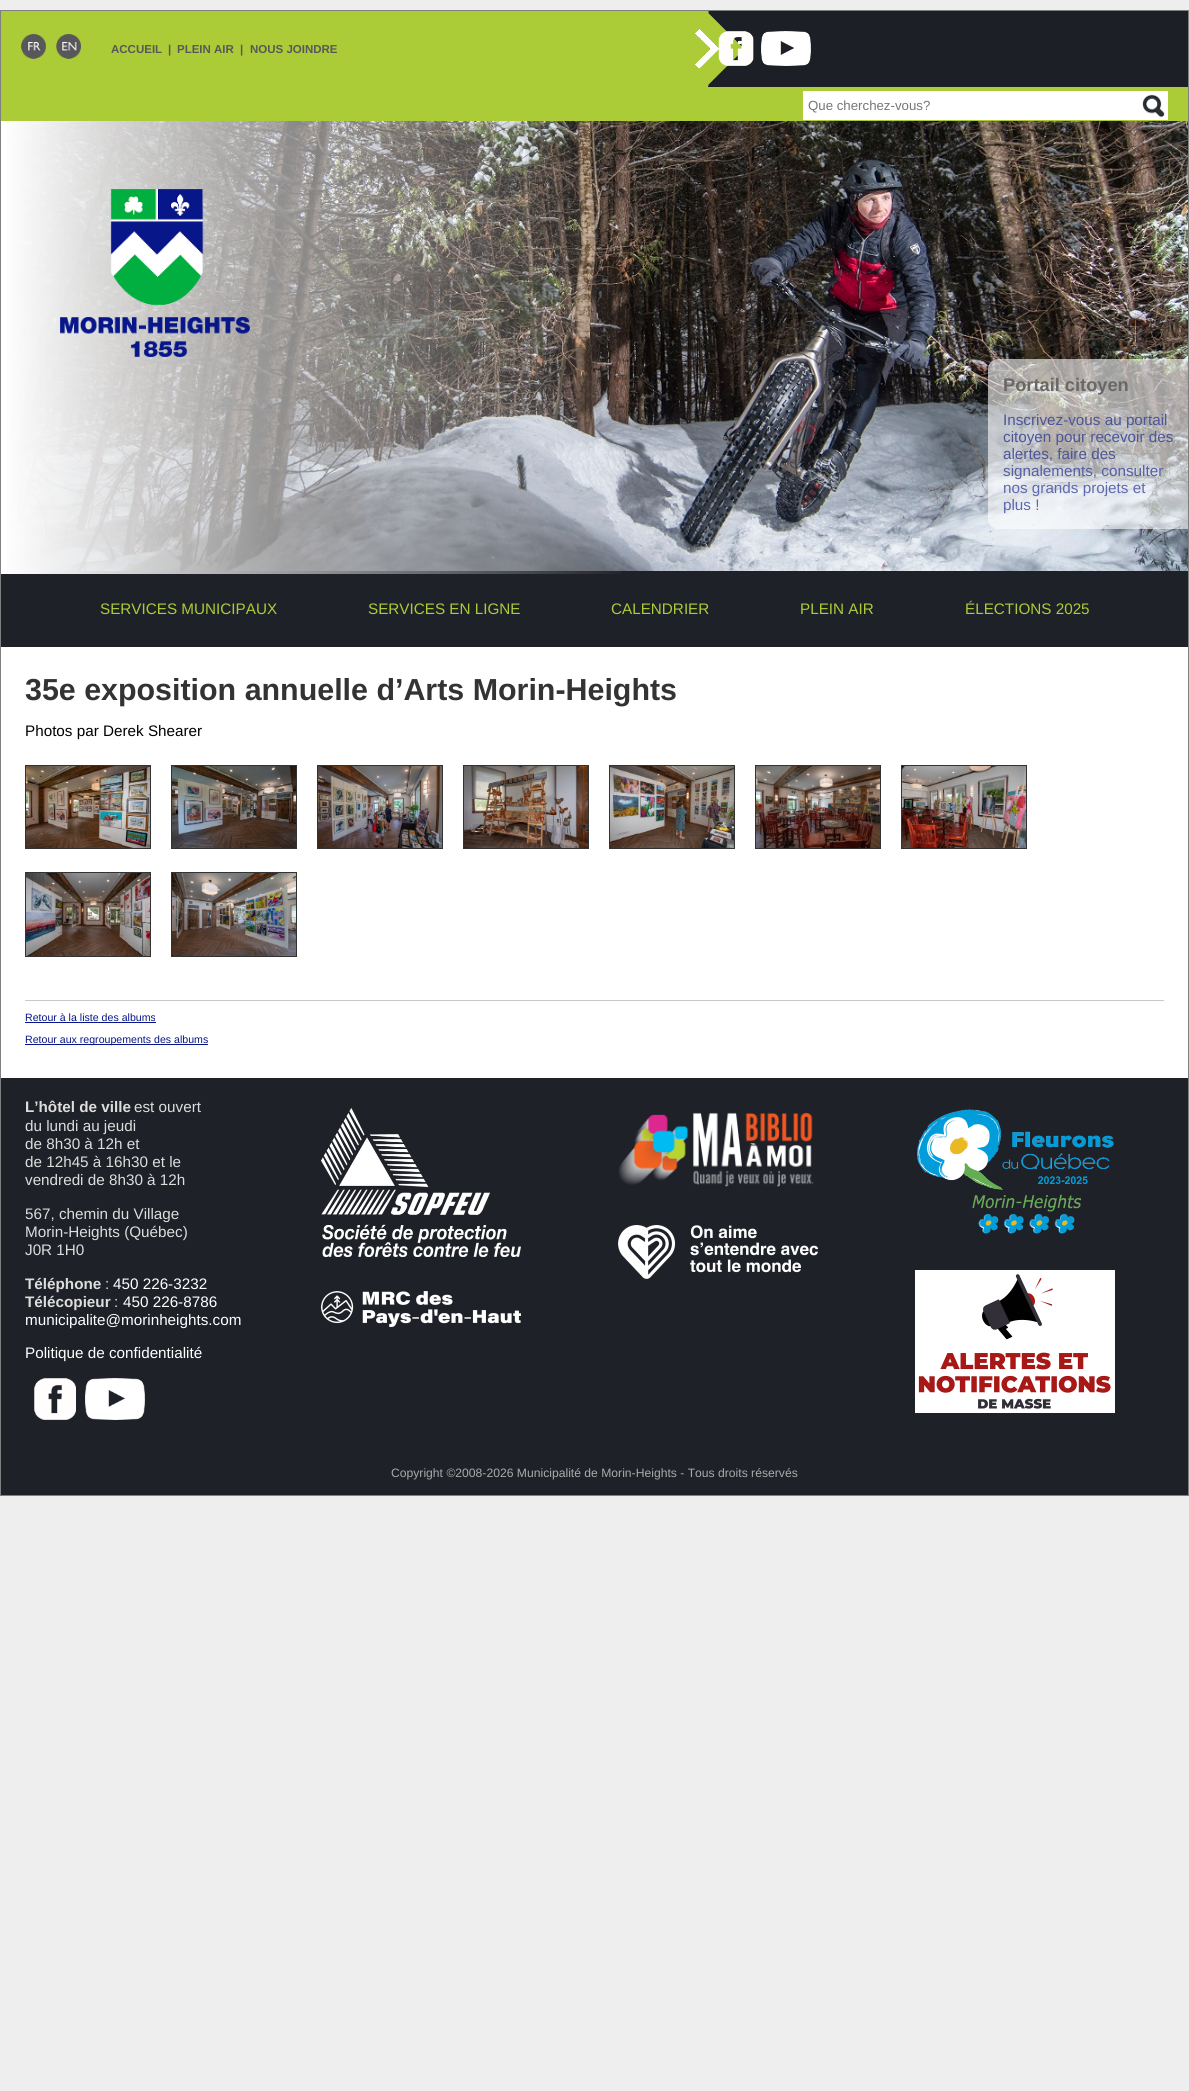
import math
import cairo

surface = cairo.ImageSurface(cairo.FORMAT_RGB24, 1189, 2091)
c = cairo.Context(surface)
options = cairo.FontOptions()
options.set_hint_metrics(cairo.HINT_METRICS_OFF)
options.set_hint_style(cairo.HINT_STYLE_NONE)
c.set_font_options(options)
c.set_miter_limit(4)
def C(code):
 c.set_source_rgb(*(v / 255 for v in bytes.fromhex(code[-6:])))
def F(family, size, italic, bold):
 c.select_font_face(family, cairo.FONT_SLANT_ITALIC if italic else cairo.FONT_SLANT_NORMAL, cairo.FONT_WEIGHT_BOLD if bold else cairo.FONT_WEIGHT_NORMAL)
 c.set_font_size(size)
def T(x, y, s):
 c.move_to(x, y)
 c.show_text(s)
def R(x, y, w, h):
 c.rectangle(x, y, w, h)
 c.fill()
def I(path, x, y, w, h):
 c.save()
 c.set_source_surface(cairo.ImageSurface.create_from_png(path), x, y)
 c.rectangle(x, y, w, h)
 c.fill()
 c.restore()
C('eeeeee')
c.paint()
C('ffffff')
R(1,647,1187,431)
c.rectangle(.5,10.5,1188,1485)
C('808080')
c.set_line_width(1)
c.stroke()
C('1f2129')
R(7,571,1181,3)
C('abcc37')
R(1,11,1187,110)
I('1.png',695,11,493,76)
F('Liberation Sans',11.5,0,1)
C('58585a')
T(111,53,'ACCUEIL')
T(168,53,'|')
T(177,53,'PLEIN AIR')
T(240,53,'|')
T(250,53,'NOUS JOINDRE')
I('2.png',718,31,36,35)
I('3.png',761,31,50,35)
I('4.png',803,91,365,29)
F('Liberation Sans',13.25,0,0)
C('757575')
T(808,110,'Que cherchez-vous?')
I('6.png',7,121,1181,450)
I('5.png',1,121,621,453)
I('7.png',60,189,190,168)
c.set_source_rgba(1,1,1,0.6)
c.new_path()
c.move_to(998,359)
c.line_to(1188,359)
c.line_to(1188,529)
c.line_to(998,529)
c.curve_to(992.5,529,988,524.5,988,519)
c.line_to(988,369)
c.curve_to(988,363.5,992.5,359,998,359)
c.close_path()
c.fill()
F('Liberation Sans',18.25,0,1)
C('696867')
T(1003,391,'Portail citoyen')
F('Liberation Sans',15.25,0,0)
C('4d5599')
T(1003,425,'Inscrivez-vous au portail')
T(1003,442,'citoyen pour recevoir des')
T(1003,459,'alertes, faire des')
C('565fa6')
T(1003,476,'signalements, consulter')
C('5f69b0')
T(1003,493,'nos grands projets et')
T(1003,510,'plus !')
C('1f2128')
R(1,574,1187,73)
C('abcc37')
T(100,614,'SERVICES MUNICIPAUX')
T(368,614,'SERVICES EN LIGNE')
T(611,614,'CALENDRIER')
T(800,614,'PLEIN AIR')
T(965,614,'ÉLECTIONS 2025')
I('8.png',21,34,25,25)
I('9.png',56,34,25,25)
F('Liberation Sans',30.4,0,1)
C('333333')
T(25,700,'35e exposition annuelle d’Arts Morin-Heights')
F('Liberation Sans',15.25,0,0)
C('000000')
T(25,736,'Photos par Derek Shearer')
c.rectangle(25.5,765.5,125,83)
C('333333')
c.stroke()
I('10.png',26,766,124,82)
c.rectangle(171.5,765.5,125,83)
c.stroke()
I('11.png',172,766,124,82)
c.rectangle(317.5,765.5,125,83)
c.stroke()
I('12.png',318,766,124,82)
c.rectangle(463.5,765.5,125,83)
c.stroke()
I('13.png',464,766,124,82)
c.rectangle(609.5,765.5,125,83)
c.stroke()
I('14.png',610,766,124,82)
c.rectangle(755.5,765.5,125,83)
c.stroke()
I('15.png',756,766,124,82)
c.rectangle(901.5,765.5,125,83)
c.stroke()
I('16.png',902,766,124,82)
c.rectangle(25.5,872.5,125,84)
c.stroke()
I('17.png',26,873,124,83)
c.rectangle(171.5,872.5,125,84)
c.stroke()
I('18.png',172,873,124,83)
C('cac8c9')
R(25,1000,1139,1)
F('Liberation Sans',10.6,0,0)
C('071588')
T(25,1021,'Retour à la liste des albums')
R(25,1022,131,1)
R(25,1044,183,1)
T(25,1043,'Retour aux regroupements des albums')
C('1f2128')
R(1,1078,1187,417)
F('Liberation Sans',15.25,0,1)
C('dddddd')
T(25,1112,'L’hôtel de ville')
F('Liberation Sans',15.25,0,0)
T(134,1112,'est ouvert')
T(25,1131,'du lundi au jeudi')
T(25,1149,'de 8h30 à 12h et')
T(25,1167,'de 12h45 à 16h30 et le')
T(25,1185,'vendredi de 8h30 à 12h')
T(25,1219,'567, chemin du Village')
T(25,1237,'Morin-Heights (Québec)')
T(25,1255,'J0R 1H0')
F('Liberation Sans',15.25,0,1)
T(25,1289,'Téléphone')
F('Liberation Sans',15.25,0,0)
T(105,1289,':')
C('ffffff')
T(113,1289,'450 226-3232')
F('Liberation Sans',15.25,0,1)
C('dddddd')
T(25,1307,'Télécopieur')
F('Liberation Sans',15.25,0,0)
T(114,1307,':')
C('ffffff')
T(123,1307,'450 226-8786')
T(25,1325,'municipalite@morinheights.com')
T(25,1358,'Politique de confidentialité')
I('19.png',34,1378,42,42)
I('20.png',85,1378,60,42)
I('21.png',321,1108,200,149)
I('22.png',321,1291,200,36)
I('23.png',618,1112,196,75)
I('24.png',618,1225,200,54)
I('25.png',917,1109,197,125)
I('26.png',915,1270,200,143)
F('Liberation Sans',12.15,0,0)
C('aaaaaa')
T(391,1477,'Copyright ©2008-2026 Municipalité de Morin-Heights - Tous droits réservés')
surface.write_to_png('o.png')
